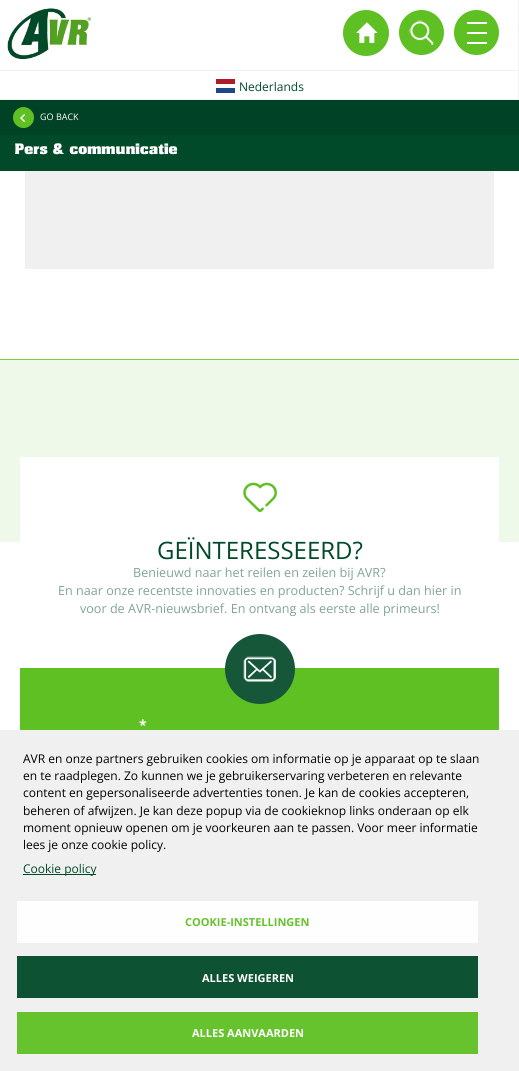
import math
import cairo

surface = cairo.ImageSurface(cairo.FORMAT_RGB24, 519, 1071)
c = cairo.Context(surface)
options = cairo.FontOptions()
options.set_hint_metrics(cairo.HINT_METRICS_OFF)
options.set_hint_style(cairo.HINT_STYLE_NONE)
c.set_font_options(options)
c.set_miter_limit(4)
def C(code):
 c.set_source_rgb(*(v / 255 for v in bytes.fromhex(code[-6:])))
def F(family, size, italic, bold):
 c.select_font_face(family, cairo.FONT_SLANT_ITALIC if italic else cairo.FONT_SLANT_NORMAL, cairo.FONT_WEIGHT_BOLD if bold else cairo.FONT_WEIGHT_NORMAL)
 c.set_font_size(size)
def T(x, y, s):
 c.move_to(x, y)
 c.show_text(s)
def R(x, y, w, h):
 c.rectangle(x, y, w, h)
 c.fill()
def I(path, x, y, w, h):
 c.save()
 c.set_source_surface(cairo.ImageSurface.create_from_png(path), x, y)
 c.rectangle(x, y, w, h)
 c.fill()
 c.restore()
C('ffffff')
c.paint()
C('5fc023')
c.arc(366,33,23,0,2 * math.pi)
c.fill()
I('1.png',356,22,22,21)
c.arc(421.5,32.5,22.5,0,2 * math.pi)
c.fill()
I('2.png',409,20,25,25)
c.arc(476.5,32.5,22.5,0,2 * math.pi)
c.fill()
C('ffffff')
R(467,32,20,2)
R(467,22,20,2)
R(467,42,20,2)
C('f0f0f0')
R(518,0,1,100)
R(0,99,519,1)
I('3.png',7,8,84,52)
R(0,70,519,1)
C('21468b')
R(216,88,19,5)
C('ae1c28')
R(216,79,19,5)
F('Open Sans',12,0,0)
C('004a29')
T(239,91,'Nederlands')
R(0,135,519,36)
C('004225')
R(0,100,519,35)
I('4.png',13,107,21,21)
F('Open Sans',9,0,0)
C('ffffff')
T(40,120,'GO BACK')
F('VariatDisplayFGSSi',14.5,0,0)
T(15,154,'Pers & communicatie')
C('f0f0f0')
R(25,171,469,98)
R(0,730,519,341)
F('Open Sans',12,0,0)
C('000000')
T(23,763,'AVR en onze partners gebruiken cookies om informatie op je apparaat op te slaan')
T(23,780,'en te raadplegen. Zo kunnen we je gebruikerservaring verbeteren en relevante')
T(23,797,'content en gepersonaliseerde advertenties tonen. Je kan de cookies accepteren,')
T(23,815,'beheren of afwijzen. Je kan deze popup via de cookieknop links onderaan op elk')
T(23,832,'moment opnieuw openen om je voorkeuren aan te passen. Voor meer informatie')
T(23,849,'lees je onze cookie policy.')
C('004a29')
R(23,874,73,1)
T(23,873,'Cookie policy')
C('fefefe')
R(17,901,461,42)
F('Open Sans',11,0,1)
C('66c22d')
T(185,926,'COOKIE-INSTELLINGEN')
C('0c5233')
R(17,956,461,42)
C('ffffff')
T(202,982,'ALLES WEIGEREN')
C('66c22d')
R(17,1012,461,42)
C('ffffff')
T(192,1037,'ALLES AANVAARDEN')
C('eff9e9')
R(0,360,519,182)
C('7fcd4f')
R(0,359,519,1)
C('ffffff')
R(20,457,479,85)
I('5.png',243,482,34,31)
F('Open Sans',24,0,0)
C('004a29')
T(157,559,'GEÏNTERESSEERD?')
F('Open Sans',12.6,0,0)
C('80a594')
T(133,577,'Benieuwd naar het reilen en zeilen bij AVR?')
T(58,595,'En naar onze recentste innovaties en producten? Schrijf u dan hier in')
T(80,613,'voor de AVR-nieuwsbrief. En ontvang als eerste alle primeurs!')
C('5fc023')
R(20,668,479,62)
C('165639')
c.new_path()
c.arc(260,669,35,0,2 * math.pi)
c.fill()
I('6.png',243,656,33,26)
F('Open Sans',14,0,1)
C('ffffff')
T(139,730,'*')
surface.write_to_png('o.png')
